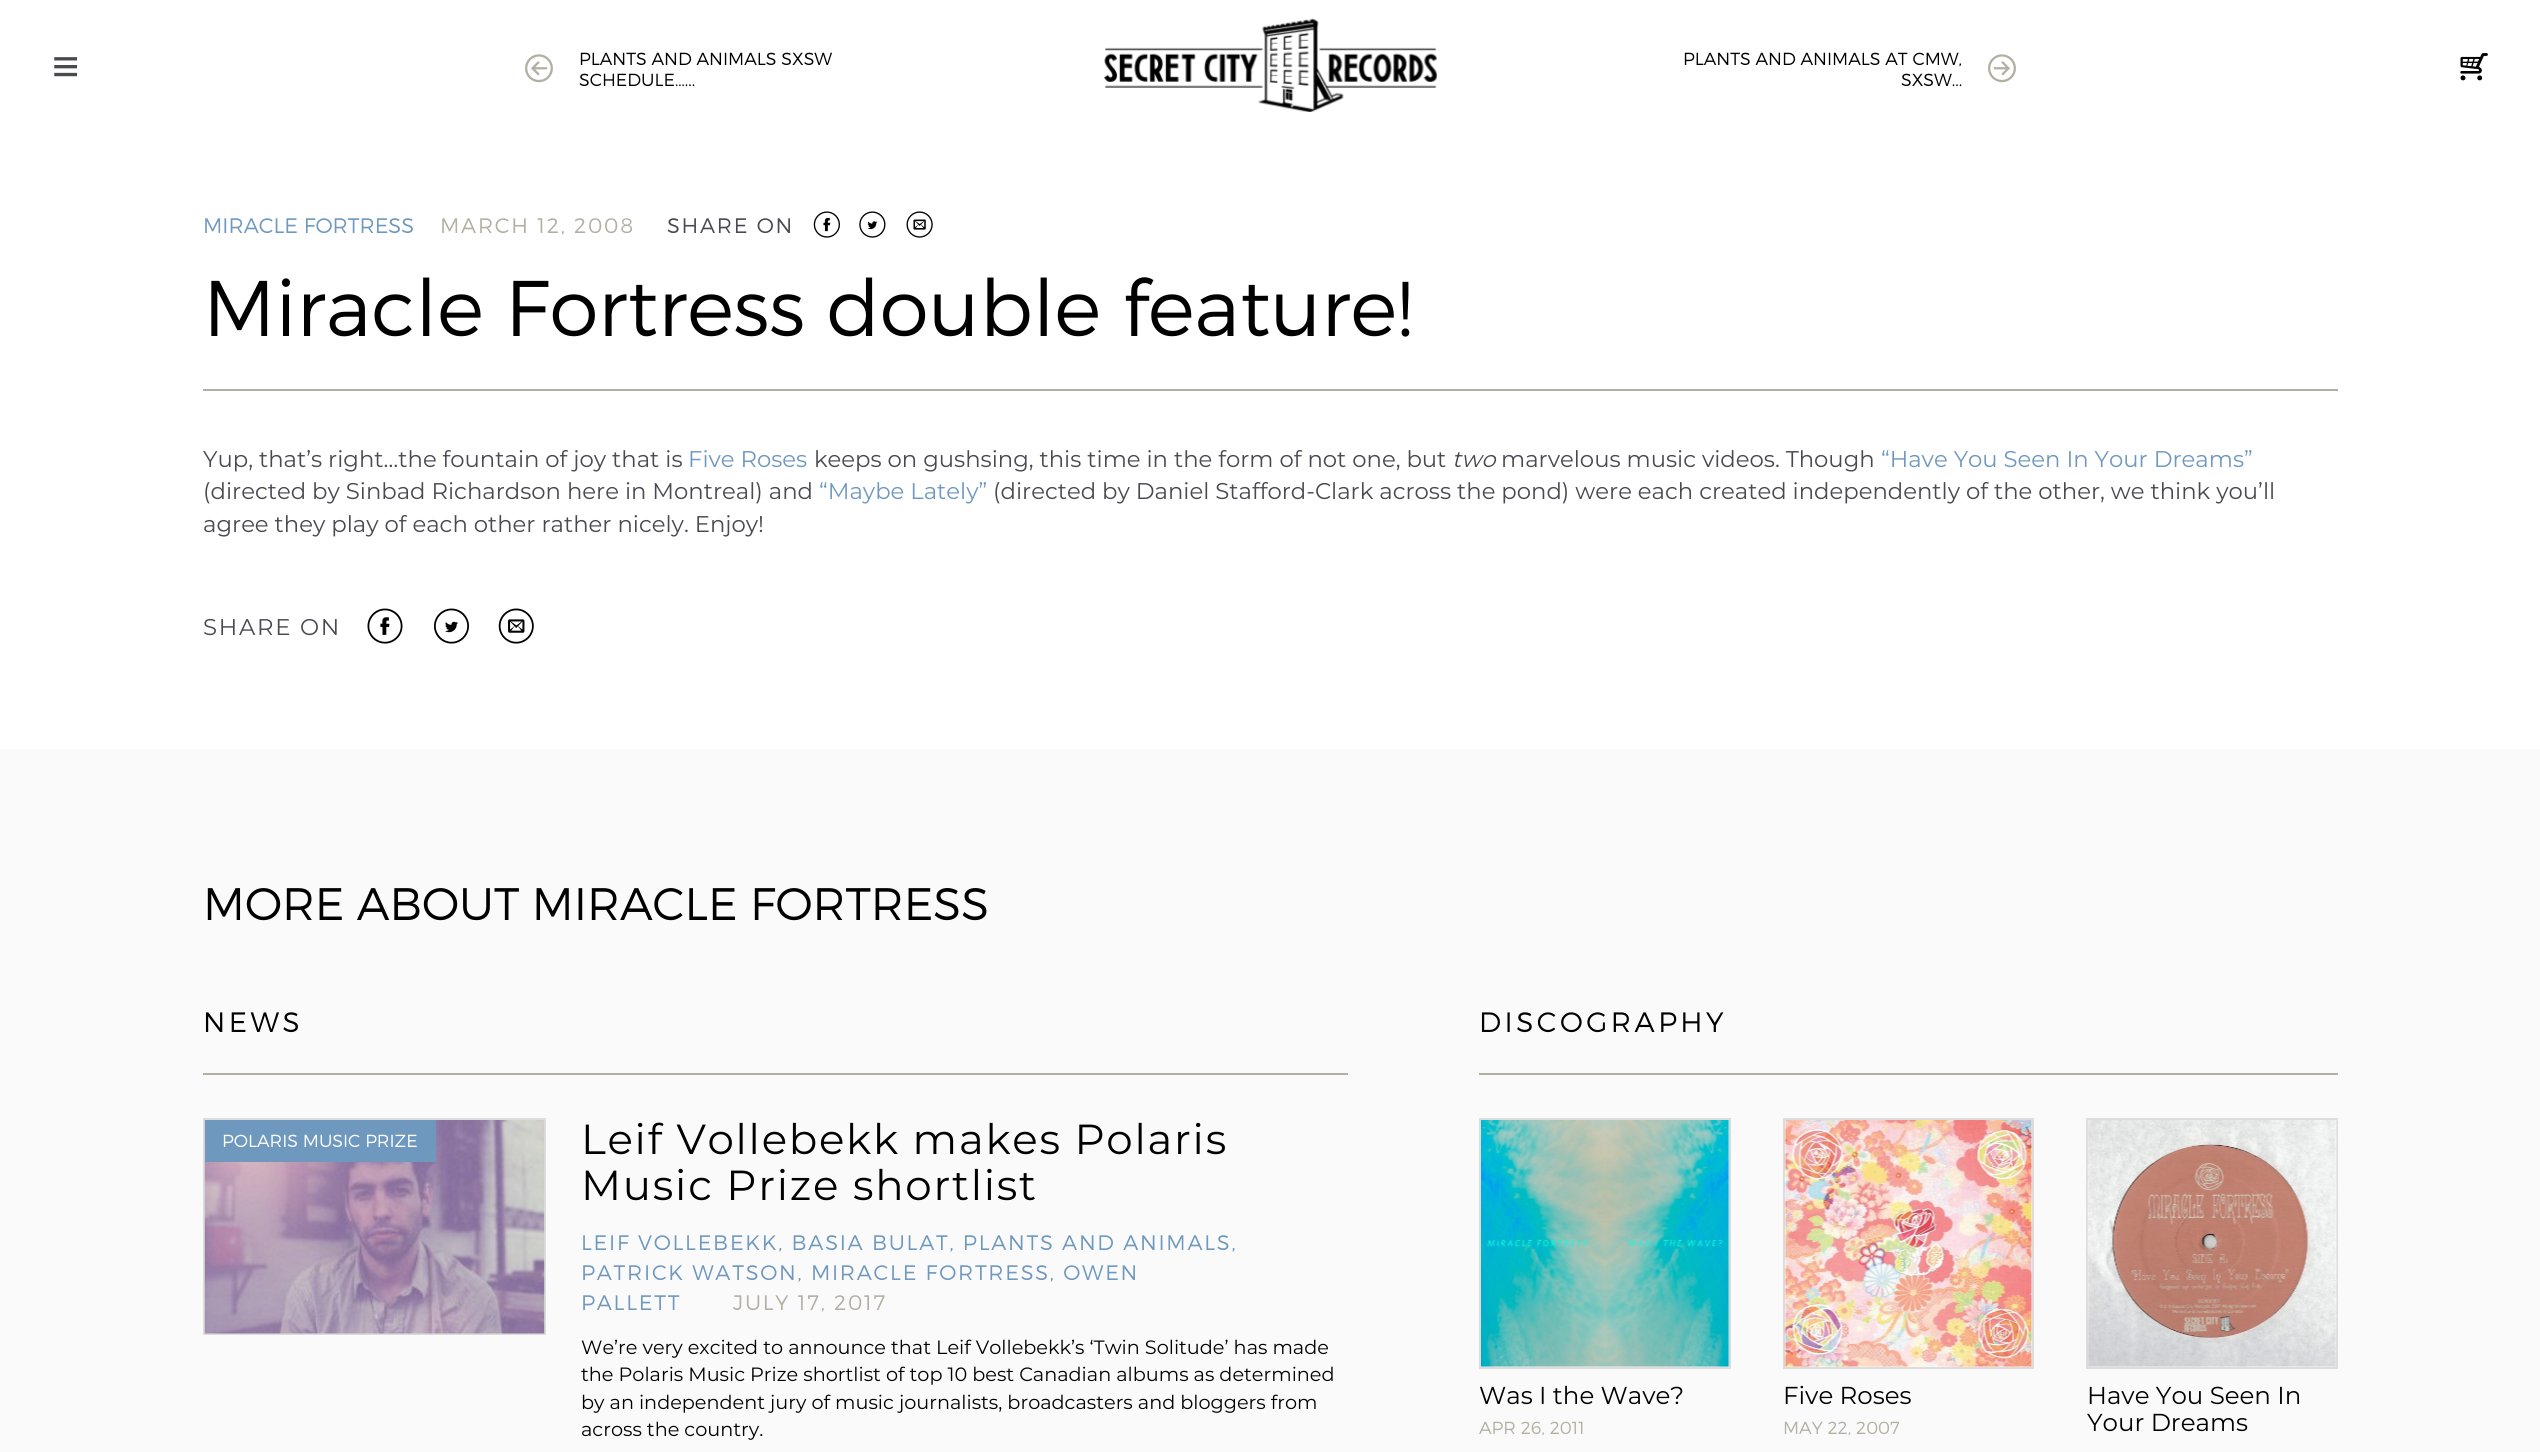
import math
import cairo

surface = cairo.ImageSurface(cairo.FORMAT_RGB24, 2540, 1452)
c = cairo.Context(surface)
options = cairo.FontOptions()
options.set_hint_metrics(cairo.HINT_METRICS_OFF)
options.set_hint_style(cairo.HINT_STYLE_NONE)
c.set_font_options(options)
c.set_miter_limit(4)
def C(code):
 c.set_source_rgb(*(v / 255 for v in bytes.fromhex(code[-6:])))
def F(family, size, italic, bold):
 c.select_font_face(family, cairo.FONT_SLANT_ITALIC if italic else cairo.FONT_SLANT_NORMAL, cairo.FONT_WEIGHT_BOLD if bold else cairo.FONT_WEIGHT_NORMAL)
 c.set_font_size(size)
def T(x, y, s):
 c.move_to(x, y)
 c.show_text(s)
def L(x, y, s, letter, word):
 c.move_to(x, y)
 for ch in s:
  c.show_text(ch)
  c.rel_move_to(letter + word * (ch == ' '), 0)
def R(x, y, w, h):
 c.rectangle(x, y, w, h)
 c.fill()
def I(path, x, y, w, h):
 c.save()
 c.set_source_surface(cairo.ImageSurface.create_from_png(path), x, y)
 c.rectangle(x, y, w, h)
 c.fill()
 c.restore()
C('ffffff')
c.paint()
I('1.png',54,57,23,20)
I('2.png',525,54,28,29)
F('Montserrat Light',17.5,0,0)
C('000000')
T(579,65,'PLANTS AND ANIMALS SXSW')
T(579,86,'SCHEDULE…...')
I('3.png',1104,18,333,94)
T(1683,65,'PLANTS AND ANIMALS AT CMW,')
T(1901,86,'SXSW...')
I('4.png',1988,54,28,29)
I('5.png',2460,53,28,28)
C('b2afa3')
R(203,389,2135,2)
F('Montserrat Light',21,0,0)
C('6f98be')
T(203,233,'MIRACLE FORTRESS')
C('b2afa3')
L(440,233,'MARCH 12, 2008',1.75,0)
C('494951')
L(667,233,'SHARE ON',1.75,0)
I('6.png',813,211,27,27)
I('7.png',859,211,27,27)
I('8.png',906,211,27,27)
F('Montserrat Light',78.75,0,0)
C('000000')
T(203,336,'Miracle Fortress double feature!')
F('Montserrat',22.75,0,0)
C('494951')
T(203,467,'Yup, that’s right…the fountain of joy that is')
C('6f98be')
T(688,467,'Five Roses')
C('494951')
T(814,467,'keeps on gushsing, this time in the form of not one, but')
F('Montserrat',22.75,1,0)
T(1452,467,'two')
F('Montserrat',22.75,0,0)
T(1501,467,'marvelous music videos. Though')
C('6f98be')
T(1881,467,'“Have You Seen In Your Dreams”')
C('494951')
T(203,499,'(directed by Sinbad Richardson here in Montreal) and')
C('6f98be')
T(819,499,'“Maybe Lately”')
C('494951')
T(993,499,'(directed by Daniel Stafford-Clark across the pond) were each created independently of the other, we think you’ll')
T(203,532,'agree they play of each other rather nicely. Enjoy!')
L(203,635,'SHARE ON',1.75,0)
I('9.png',367,608,36,36)
I('10.png',434,608,35,36)
I('11.png',498,608,36,36)
C('fafafa')
R(0,749,2540,703)
F('Montserrat Light',45.5,0,0)
C('000000')
T(203,920,'MORE ABOUT MIRACLE FORTRESS')
C('b2afa3')
R(203,1073,1145,2)
F('Montserrat Light',28,0,0)
C('000000')
L(203,1032,'NEWS',3.5,0)
c.rectangle(204,1119,341,215)
C('dddddd')
c.stroke()
I('12.png',204,1120,341,214)
C('6f98be')
R(205,1120,231,42)
F('Montserrat Light',17.5,0,0)
C('ffffff')
T(222,1147,'POLARIS MUSIC PRIZE')
F('Montserrat',42,0,0)
C('000000')
L(581,1154,'Leif Vollebekk makes Polaris',1.75,0)
L(581,1200,'Music Prize shortlist',1.75,0)
F('Montserrat Light',21,0,0)
C('6f98be')
L(581,1250,'LEIF VOLLEBEKK, BASIA BULAT, PLANTS AND ANIMALS,',1.75,0)
L(581,1280,'PATRICK WATSON, MIRACLE FORTRESS, OWEN',1.75,0)
L(581,1310,'PALLETT',1.75,0)
C('b2afa3')
L(733,1310,'JULY 17, 2017',1.75,0)
F('Montserrat',19.25,0,0)
C('000000')
T(581,1354,'We’re very excited to announce that Leif Vollebekk’s ‘Twin Solitude’ has made')
T(581,1381,'the Polaris Music Prize shortlist of top 10 best Canadian albums as determined')
T(581,1409,'by an independent jury of music journalists, broadcasters and bloggers from')
T(581,1436,'across the country.')
C('b2afa3')
R(1479,1073,859,2)
F('Montserrat Light',28,0,0)
C('000000')
L(1479,1032,'DISCOGRAPHY',3.5,0)
c.rectangle(1480,1119,250,249)
C('dddddd')
c.stroke()
I('13.png',1481,1120,249,247)
F('Montserrat',24.5,0,0)
C('000000')
T(1479,1404,'Was I the Wave?')
F('Montserrat Light',17.5,0,0)
C('b2afa3')
T(1479,1434,'APR 26, 2011')
c.rectangle(1784,1119,249,249)
C('dddddd')
c.stroke()
I('14.png',1784,1120,249,247)
F('Montserrat',24.5,0,0)
C('000000')
T(1783,1404,'Five Roses')
F('Montserrat Light',17.5,0,0)
C('b2afa3')
T(1783,1434,'MAY 22, 2007')
c.rectangle(2087,1119,250,249)
C('dddddd')
c.stroke()
I('15.png',2087,1120,250,247)
F('Montserrat',24.5,0,0)
C('000000')
T(2087,1404,'Have You Seen In')
T(2087,1431,'Your Dreams')
surface.write_to_png('o.png')
